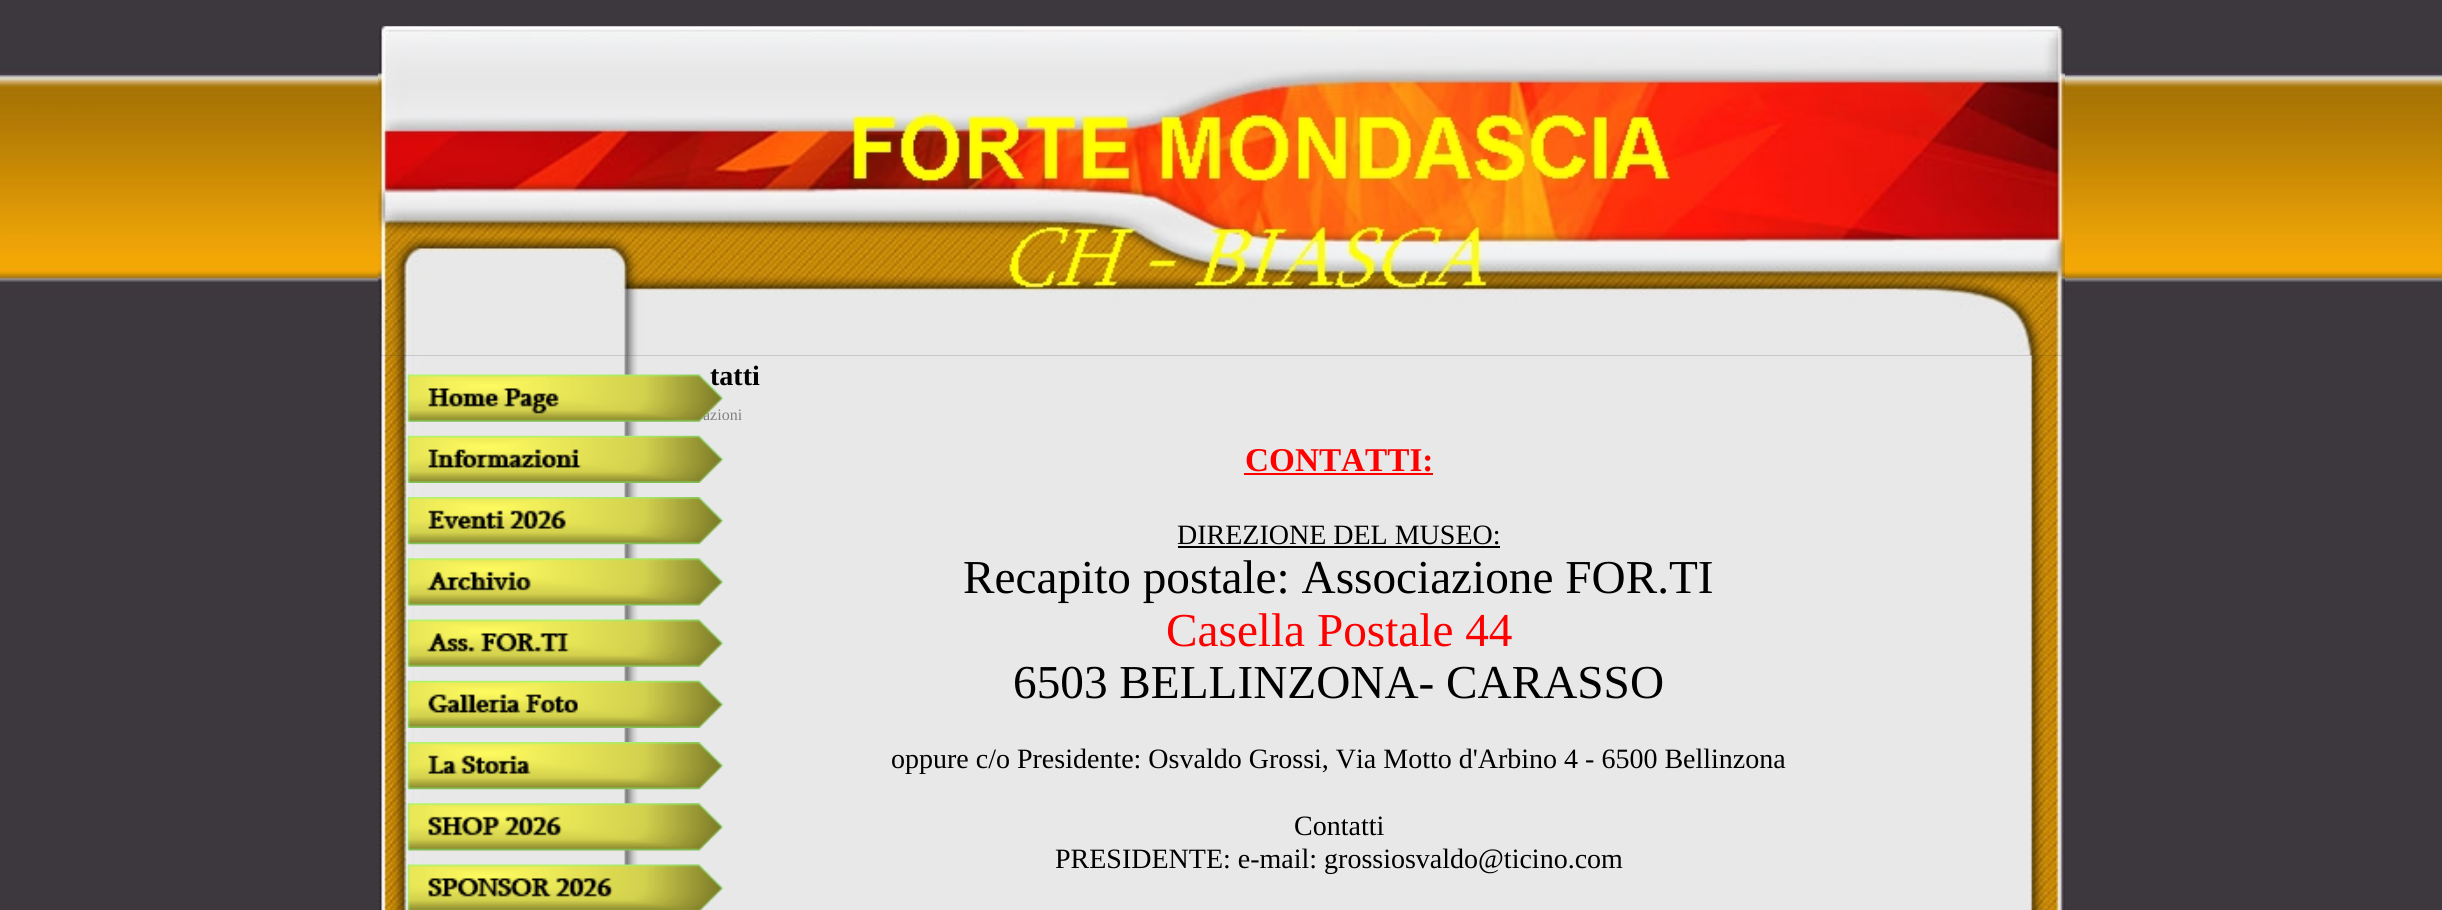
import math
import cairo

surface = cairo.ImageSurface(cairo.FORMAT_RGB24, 2442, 910)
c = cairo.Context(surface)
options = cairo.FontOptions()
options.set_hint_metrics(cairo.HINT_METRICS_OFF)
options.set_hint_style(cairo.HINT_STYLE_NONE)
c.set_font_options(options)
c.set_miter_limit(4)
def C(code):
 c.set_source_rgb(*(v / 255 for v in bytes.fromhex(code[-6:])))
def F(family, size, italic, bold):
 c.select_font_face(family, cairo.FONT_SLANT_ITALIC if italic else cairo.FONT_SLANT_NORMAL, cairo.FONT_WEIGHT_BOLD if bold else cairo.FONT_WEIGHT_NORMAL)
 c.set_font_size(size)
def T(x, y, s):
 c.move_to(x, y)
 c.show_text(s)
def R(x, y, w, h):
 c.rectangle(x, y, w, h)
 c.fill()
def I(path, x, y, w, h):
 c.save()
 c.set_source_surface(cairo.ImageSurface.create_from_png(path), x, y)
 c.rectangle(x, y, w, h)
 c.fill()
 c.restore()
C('ffffff')
c.paint()
I('1.png',0,0,2442,910)
I('3.png',378,355,1687,555)
I('2.png',378,26,1687,330)
F('Liberation Serif',28,0,1)
C('000000')
T(710,385,'tatti')
F('Liberation Serif',16,0,0)
C('808080')
T(703,420,'azioni')
I('4.png',407,374,316,48)
I('5.png',407,435,316,48)
I('6.png',407,497,316,48)
I('7.png',407,558,316,48)
I('8.png',407,619,316,48)
I('9.png',407,680,316,48)
I('10.png',407,742,316,48)
I('11.png',407,803,316,48)
I('12.png',407,864,316,46)
F('Liberation Serif',33.25,0,1)
C('ff0000')
T(1245,471,'CONTATTI:')
R(1244,473,189,2)
F('Liberation Serif',28,0,0)
C('000000')
T(1177,544,'DIREZIONE DEL MUSEO:')
R(1178,546,322,2)
F('Liberation Serif',47.25,0,0)
T(963,593,'Recapito postale: Associazione FOR.TI')
C('ff0000')
T(1166,646,'Casella Postale 44')
C('000000')
T(1013,698,'6503 BELLINZONA- CARASSO')
F('Liberation Serif',28,0,0)
T(891,768,'oppure c/o Presidente: Osvaldo Grossi, Via Motto d\'Arbino 4 - 6500 Bellinzona')
T(1294,835,'Contatti')
T(1055,868,'PRESIDENTE: e-mail: grossiosvaldo@ticino.com')
surface.write_to_png('o.png')
